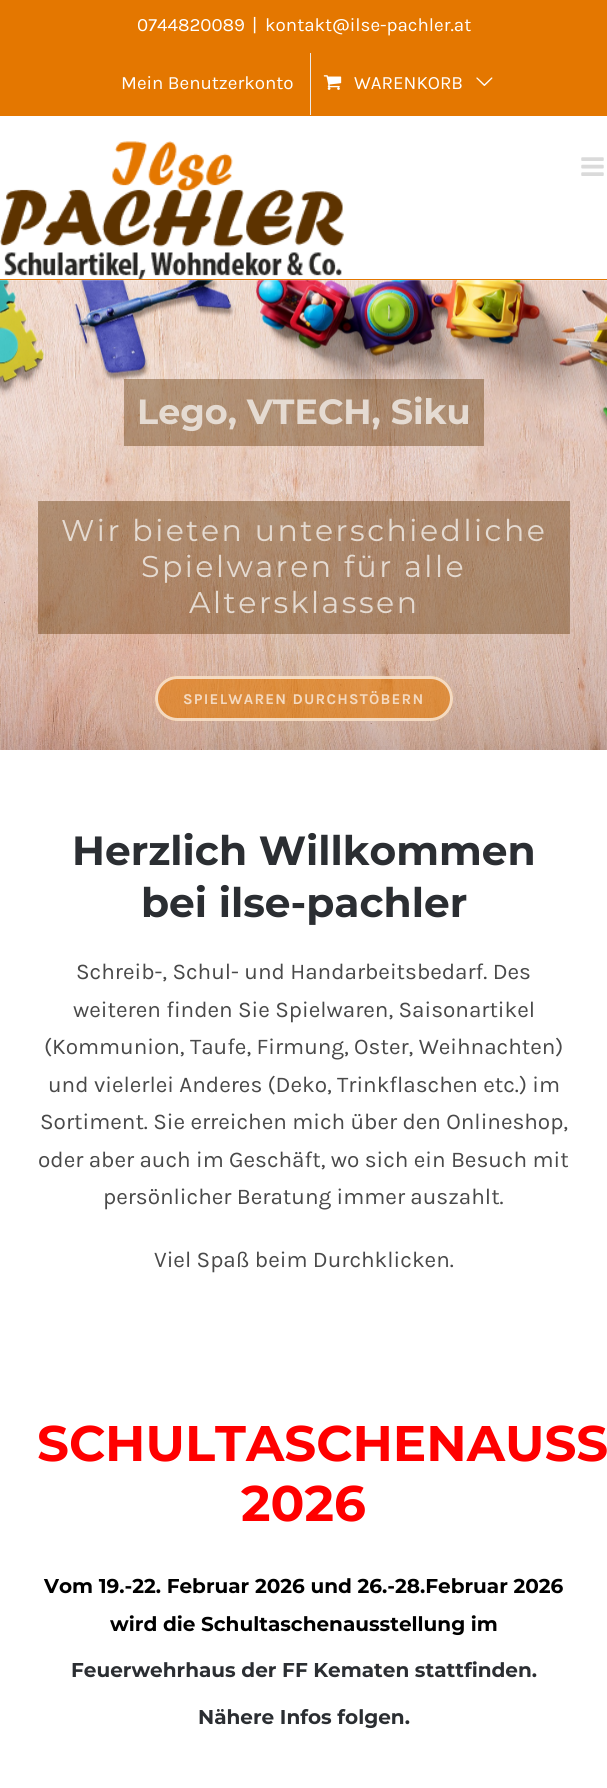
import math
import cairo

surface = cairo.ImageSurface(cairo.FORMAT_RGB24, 607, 1788)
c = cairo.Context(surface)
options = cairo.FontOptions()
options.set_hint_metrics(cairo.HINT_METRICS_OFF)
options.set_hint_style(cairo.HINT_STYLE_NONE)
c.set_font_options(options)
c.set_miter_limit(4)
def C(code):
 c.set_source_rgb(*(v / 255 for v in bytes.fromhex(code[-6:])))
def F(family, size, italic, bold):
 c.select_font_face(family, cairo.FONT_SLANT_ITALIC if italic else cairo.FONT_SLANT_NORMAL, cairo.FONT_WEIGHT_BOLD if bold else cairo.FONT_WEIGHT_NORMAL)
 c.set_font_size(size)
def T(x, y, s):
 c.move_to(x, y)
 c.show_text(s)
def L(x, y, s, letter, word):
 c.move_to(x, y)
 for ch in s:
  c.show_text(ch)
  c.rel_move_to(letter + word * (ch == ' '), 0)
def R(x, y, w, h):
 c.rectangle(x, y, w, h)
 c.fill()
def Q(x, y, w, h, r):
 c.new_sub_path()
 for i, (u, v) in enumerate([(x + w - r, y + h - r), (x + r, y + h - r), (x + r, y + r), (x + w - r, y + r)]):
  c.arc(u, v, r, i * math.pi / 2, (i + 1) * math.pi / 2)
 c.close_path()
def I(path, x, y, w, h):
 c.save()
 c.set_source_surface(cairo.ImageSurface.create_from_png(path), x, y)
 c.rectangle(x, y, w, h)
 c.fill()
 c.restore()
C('ffffff')
c.paint()
C('e47700')
R(0,0,607,116)
F('Karla',18.75,0,0)
C('ffffff')
T(137,31,'0744820089')
T(252,31,'|')
T(265,31,'kontakt@ilse-pachler.at')
T(121,89,'Mein Benutzerkonto')
C('eaeaea')
R(310,53,1,62)
I('1.png',323,75,19,15)
C('ffffff')
T(354,89,'WARENKORB')
I('2.png',476,77,17,9)
C('e47700')
R(0,279,607,1)
I('3.png',0,141,344,138)
I('4.png',581,157,23,19)
I('5.png',0,280,607,470)
c.set_source_rgba(0.365,0.2,0,0.41)
R(124,379,360,67)
F('Montserrat',35,0,1)
C('e5dbd2')
T(137,424,'Lego, VTECH, Siku')
c.set_source_rgba(0.365,0.2,0,0.41)
R(38,501,532,133)
F('Montserrat',30,0,0)
C('e5dbd2')
L(61,541,'Wir bieten unterschiedliche',2.5,0)
L(141,577,'Spielwaren für alle',2.5,0)
L(189,613,'Altersklassen',2.5,0)
c.set_source_rgba(0.894,0.467,0,0.61)
Q(155,676,298,45,22.5)
c.fill()
Q(156.5,677.5,295,42,21)
c.set_source_rgba(1,1,1,0.68)
c.set_line_width(3)
c.stroke()
F('Karla',15,0,1)
C('f4dac1')
L(183,704,'SPIELWAREN DURCHSTÖBERN',1.25,0)
F('Montserrat',40.75,0,1)
C('2b2e32')
T(72,865,'Herzlich Willkommen')
T(141,917,'bei ilse-pachler')
F('Karla',22.5,0,0)
C('494949')
T(76,979,'Schreib-, Schul- und Handarbeitsbedarf. Des')
T(73,1017,'weiteren finden Sie Spielwaren, Saisonartikel')
T(44,1054,'(Kommunion, Taufe, Firmung, Oster, Weihnachten)')
T(48,1092,'und vielerlei Anderes (Deko, Trinkflaschen etc.) im')
T(40,1129,'Sortiment. Sie erreichen mich über den Onlineshop,')
T(38,1167,'oder aber auch im Geschäft, wo sich ein Besuch mit')
T(103,1204,'persönlicher Beratung immer auszahlt.')
T(154,1267,'Viel Spaß beim Durchklicken.')
F('Montserrat',50,0,1)
C('ff0000')
T(37,1461,'SCHULTASCHENAUSS')
T(241,1521,'2026')
F('Montserrat',20,0,1)
C('000000')
T(44,1593,'Vom 19.-22. Februar 2026 und 26.-28.Februar 2026')
T(110,1631,'wird die Schultaschenausstellung im')
C('2b2e32')
T(71,1677,'Feuerwehrhaus der FF Kematen stattfinden.')
T(198,1724,'Nähere Infos folgen.')
surface.write_to_png('o.png')
